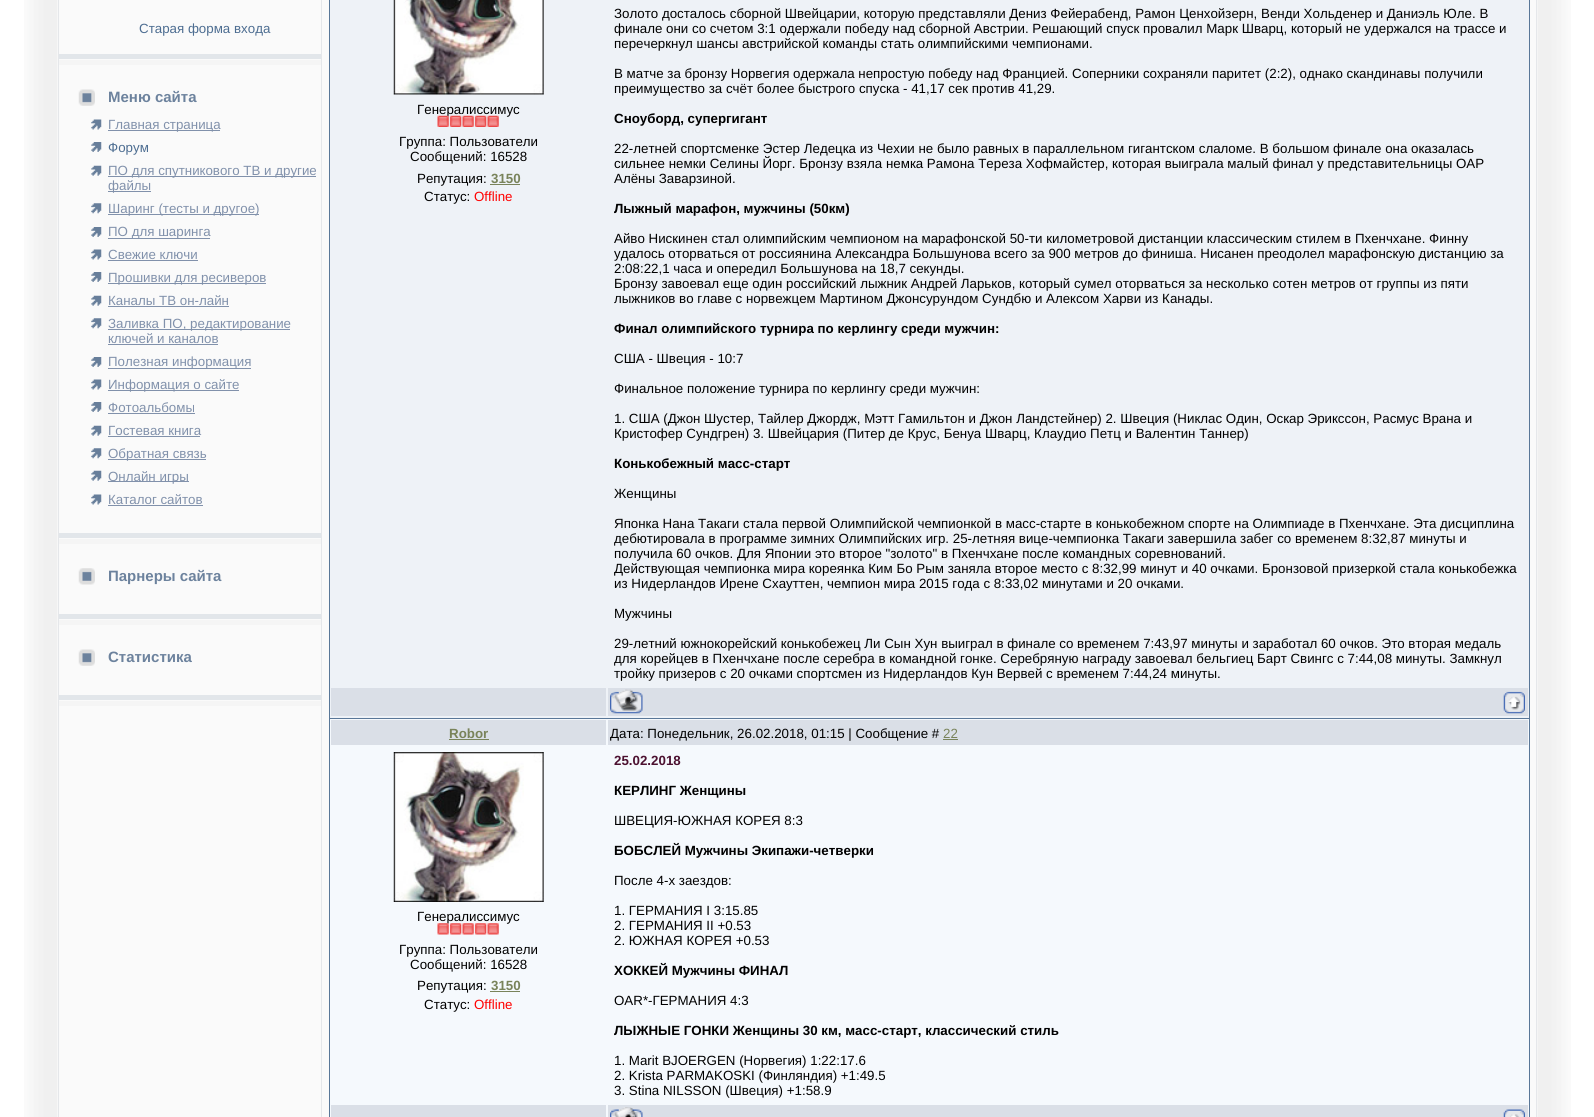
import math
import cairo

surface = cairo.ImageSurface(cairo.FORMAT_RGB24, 1594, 1117)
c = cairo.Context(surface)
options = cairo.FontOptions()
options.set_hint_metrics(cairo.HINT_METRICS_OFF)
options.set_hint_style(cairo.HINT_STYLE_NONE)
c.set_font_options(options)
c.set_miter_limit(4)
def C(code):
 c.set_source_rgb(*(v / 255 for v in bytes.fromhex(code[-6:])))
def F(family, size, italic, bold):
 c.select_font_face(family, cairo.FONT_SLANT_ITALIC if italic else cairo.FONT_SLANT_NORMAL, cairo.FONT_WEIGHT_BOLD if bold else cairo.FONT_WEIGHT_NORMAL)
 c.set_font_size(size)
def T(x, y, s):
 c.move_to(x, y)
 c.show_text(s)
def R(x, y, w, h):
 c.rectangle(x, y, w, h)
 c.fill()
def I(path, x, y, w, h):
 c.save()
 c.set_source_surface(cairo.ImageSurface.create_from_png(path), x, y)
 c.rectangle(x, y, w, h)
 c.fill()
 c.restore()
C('ffffff')
c.paint()
I('1.png',24,0,34,1117)
C('fafafa')
R(59,0,1479,1117)
C('e5e7ea')
R(1536,0,1,1117)
R(58,0,1,1117)
R(321,0,1,1117)
F('Liberation Sans',13.33,0,0)
C('4d6d91')
T(139,33,'Старая форма входа')
C('e2e6ea')
R(59,54,262,5)
C('f5f5f5')
R(59,60,262,5)
I('2.png',78,89,17,17)
F('Liberation Sans',15,0,1)
C('6c829d')
T(108,102,'Меню сайта')
I('3.png',91,119,11,11)
C('8191ab')
R(108,130,112,1)
F('Liberation Sans',13.33,0,0)
T(108,129,'Главная страница')
I('4.png',91,142,11,10)
C('4d6d91')
T(108,152,'Форум')
I('5.png',91,165,11,11)
C('8191ab')
R(108,176,208,1)
T(108,175,'ПО для спутникового ТВ и другие')
R(108,191,43,1)
T(108,190,'файлы')
I('6.png',91,203,11,11)
R(108,214,151,1)
T(108,213,'Шаринг (тесты и другое)')
I('4.png',91,227,11,10)
R(108,238,102,1)
T(108,236,'ПО для шаринга')
I('3.png',91,249,11,11)
T(108,259,'Свежие ключи')
R(108,260,90,1)
I('4.png',91,272,11,10)
R(108,283,158,1)
T(108,282,'Прошивки для ресиверов')
I('7.png',91,295,11,11)
T(108,305,'Каналы ТВ он-лайн')
R(108,306,121,1)
I('6.png',91,318,11,11)
R(108,329,182,1)
T(108,328,'Заливка ПО, редактирование')
T(108,343,'ключей и каналов')
R(108,344,110,1)
I('8.png',91,357,11,10)
R(108,368,143,1)
T(108,366,'Полезная информация')
I('3.png',91,379,11,11)
R(108,390,131,1)
T(108,389,'Информация о сайте')
I('4.png',91,402,11,10)
T(108,412,'Фотоальбомы')
R(108,413,87,1)
I('7.png',91,425,11,11)
T(108,435,'Гостевая книга')
R(108,436,92,1)
I('6.png',91,448,11,11)
R(108,459,98,1)
T(108,458,'Обратная связь')
I('7.png',91,470,11,11)
R(108,481,81,1)
T(108,481,'Онлайн игры')
I('3.png',91,494,11,11)
T(108,504,'Каталог сайтов')
R(108,505,95,1)
C('e2e6ea')
R(59,533,262,5)
C('f5f5f5')
R(59,539,262,5)
I('9.png',78,568,17,17)
F('Liberation Sans',15,0,1)
C('6c829d')
T(108,581,'Парнеры сайта')
C('e2e6ea')
R(59,614,262,5)
C('f5f5f5')
R(59,620,262,5)
I('2.png',78,649,17,17)
C('6c829d')
T(108,662,'Статистика')
C('e2e6ea')
R(59,695,262,5)
C('f5f5f5')
R(59,701,262,5)
C('597798')
R(329,0,1201,1117)
C('eef2f7')
R(330,0,1199,718)
I('10.png',393,0,151,95)
F('Liberation Sans',13.33,0,0)
C('000000')
T(417,114,'Генералиссимус')
I('11.png',437,115,62,12)
T(399,146,'Группа: Пользователи')
T(410,161,'Сообщений: 16528')
T(417,183,'Репутация:')
F('Liberation Sans',13.33,0,1)
C('79835a')
T(491,183,'3150')
R(490,184,30,1)
F('Liberation Sans',13.33,0,0)
C('000000')
T(424,201,'Статус:')
C('ff0000')
T(474,201,'Offline')
C('000000')
T(614,18,'Золото досталось сборной Швейцарии, которую представляли Дениз Фейерабенд, Рамон Ценхойзерн, Венди Хольденер и Даниэль Юле. В')
T(614,33,'финале они со счетом 3:1 одержали победу над сборной Австрии. Решающий спуск провалил Марк Шварц, который не удержался на трассе и')
T(614,48,'перечеркнул шансы австрийской команды стать олимпийскими чемпионами.')
T(614,78,'В матче за бронзу Норвегия одержала непростую победу над Францией. Соперники сохраняли паритет (2:2), однако скандинавы получили')
T(614,93,'преимущество за счёт более быстрого спуска - 41,17 сек против 41,29.')
F('Liberation Sans',13.33,0,1)
T(614,123,'Сноуборд, супергигант')
F('Liberation Sans',13.33,0,0)
T(614,153,'22-летней спортсменке Эстер Ледецка из Чехии не было равных в параллельном гигантском слаломе. В большом финале она оказалась')
T(614,168,'сильнее немки Селины Йорг. Бронзу взяла немка Рамона Тереза Хофмайстер, которая выиграла малый финал у представительницы ОАР')
T(614,183,'Алёны Заварзиной.')
F('Liberation Sans',13.33,0,1)
T(614,213,'Лыжный марафон, мужчины (50км)')
F('Liberation Sans',13.33,0,0)
T(614,243,'Айво Нискинен стал олимпийским чемпионом на марафонской 50-ти километровой дистанции классическим стилем в Пхенчхане. Финну')
T(614,258,'удалось оторваться от россиянина Александра Большунова всего за 900 метров до финиша. Нисанен преодолел марафонскую дистанцию за')
T(614,273,'2:08:22,1 часа и опередил Большунова на 18,7 секунды.')
T(614,288,'Бронзу завоевал еще один российский лыжник Андрей Ларьков, который сумел оторваться за несколько сотен метров от группы из пяти')
T(614,303,'лыжников во главе с норвежцем Мартином Джонсурундом Сундбю и Алексом Харви из Канады.')
F('Liberation Sans',13.33,0,1)
T(614,333,'Финал олимпийского турнира по керлингу среди мужчин:')
F('Liberation Sans',13.33,0,0)
T(614,363,'США - Швеция - 10:7')
T(614,393,'Финальное положение турнира по керлингу среди мужчин:')
T(614,423,'1. США (Джон Шустер, Тайлер Джордж, Мэтт Гамильтон и Джон Ландстейнер) 2. Швеция (Никлас Один, Оскар Эрикссон, Расмус Врана и')
T(614,438,'Кристофер Сундгрен) 3. Швейцария (Питер де Круc, Бенуа Шварц, Клаудио Петц и Валентин Таннер)')
F('Liberation Sans',13.33,0,1)
T(614,468,'Конькобежный масс-старт')
F('Liberation Sans',13.33,0,0)
T(614,498,'Женщины')
T(614,528,'Японка Нана Такаги стала первой Олимпийской чемпионкой в масс-старте в конькобежном спорте на Олимпиаде в Пхенчхане. Эта дисциплина')
T(614,543,'дебютировала в программе зимних Олимпийских игр. 25-летняя вице-чемпионка Такаги завершила забег со временем 8:32,87 минуты и')
T(614,558,'получила 60 очков. Для Японии это второе "золото" в Пхенчхане после командных соревнований.')
T(614,573,'Действующая чемпионка мира кореянка Ким Бо Рым заняла второе место с 8:32,99 минут и 40 очками. Бронзовой призеркой стала конькобежка')
T(614,588,'из Нидерландов Ирене Схауттен, чемпион мира 2015 года с 8:33,02 минутами и 20 очками.')
T(614,618,'Мужчины')
T(614,648,'29-летний южнокорейский конькобежец Ли Сын Хун выиграл в финале со временем 7:43,97 минуты и заработал 60 очков. Это вторая медаль')
T(614,663,'для корейцев в Пхенчхане после серебра в командной гонке. Серебряную награду завоевал бельгиец Барт Свингс с 7:44,08 минуты. Замкнул')
T(614,678,'тройку призеров с 20 очками спортсмен из Нидерландов Кун Вервей с временем 7:44,24 минуты.')
C('dadfe7')
R(331,688,275,28)
R(608,688,920,28)
I('12.png',610,689,33,25)
I('13.png',1503,691,22,23)
C('f5f9fd')
R(330,719,1199,398)
C('dadfe7')
R(331,720,275,25)
F('Liberation Sans',13.33,0,1)
C('79835a')
T(449,738,'Robor')
R(449,739,40,1)
C('dadfe7')
R(608,720,920,25)
F('Liberation Sans',13.33,0,0)
C('000000')
T(610,738,'Дата: Понедельник, 26.02.2018, 01:15 | Сообщение #')
C('79835a')
T(943,738,'22')
R(943,739,15,1)
I('14.png',393,752,151,150)
C('000000')
T(417,921,'Генералиссимус')
I('15.png',437,923,62,12)
T(399,954,'Группа: Пользователи')
T(410,969,'Сообщений: 16528')
T(417,990,'Репутация:')
F('Liberation Sans',13.33,0,1)
C('79835a')
T(491,990,'3150')
R(490,991,30,1)
F('Liberation Sans',13.33,0,0)
C('000000')
T(424,1009,'Статус:')
C('ff0000')
T(474,1009,'Offline')
F('Liberation Sans',13.33,0,1)
C('4c1130')
T(614,765,'25.02.2018')
C('000000')
T(614,795,'КЕРЛИНГ Женщины')
F('Liberation Sans',13.33,0,0)
T(614,825,'ШВЕЦИЯ-ЮЖНАЯ КОРЕЯ 8:3')
F('Liberation Sans',13.33,0,1)
T(614,855,'БОБСЛЕЙ Мужчины Экипажи-четверки')
F('Liberation Sans',13.33,0,0)
T(614,885,'После 4-х заездов:')
T(614,915,'1. ГЕРМАНИЯ I 3:15.85')
T(614,930,'2. ГЕРМАНИЯ II +0.53')
T(614,945,'2. ЮЖНАЯ КОРЕЯ +0.53')
F('Liberation Sans',13.33,0,1)
T(614,975,'ХОККЕЙ Мужчины ФИНАЛ')
F('Liberation Sans',13.33,0,0)
T(614,1005,'OAR*-ГЕРМАНИЯ 4:3')
F('Liberation Sans',13.33,0,1)
T(614,1035,'ЛЫЖНЫЕ ГОНКИ Женщины 30 км, масс-старт, классический стиль')
F('Liberation Sans',13.33,0,0)
T(614,1065,'1. Marit BJOERGEN (Норвегия) 1:22:17.6')
T(614,1080,'2. Krista PARMAKOSKI (Финляндия) +1:49.5')
T(614,1095,'3. Stina NILSSON (Швеция) +1:58.9')
C('dadfe7')
R(331,1105,275,12)
R(608,1105,920,12)
I('16.png',610,1107,33,10)
I('17.png',1503,1109,22,8)
I('18.png',1537,0,34,1117)
surface.write_to_png('o.png')
